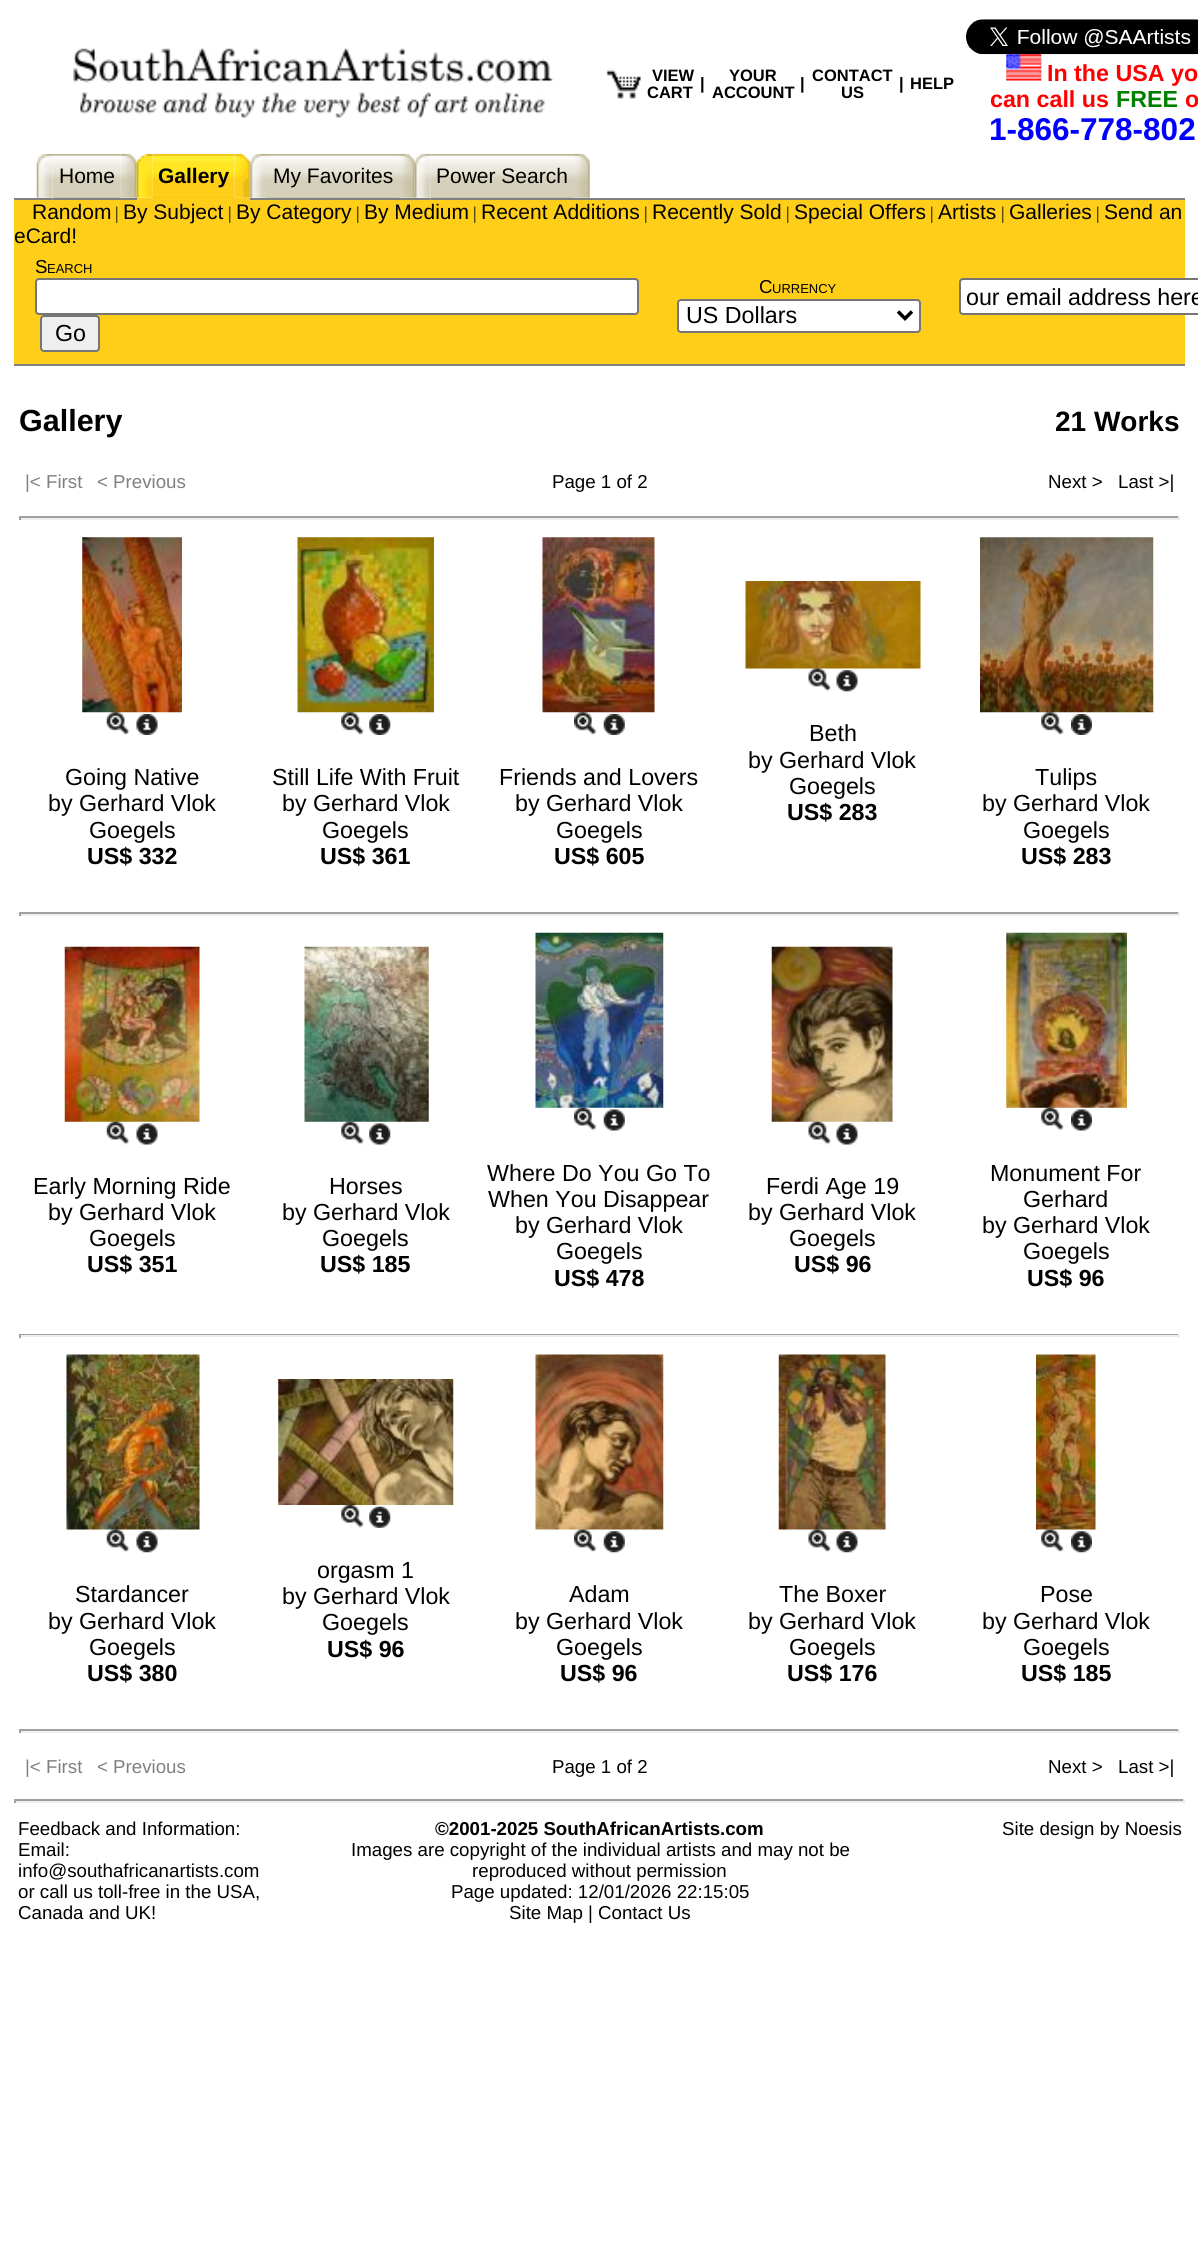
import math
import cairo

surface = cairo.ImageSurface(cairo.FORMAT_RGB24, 1198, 2245)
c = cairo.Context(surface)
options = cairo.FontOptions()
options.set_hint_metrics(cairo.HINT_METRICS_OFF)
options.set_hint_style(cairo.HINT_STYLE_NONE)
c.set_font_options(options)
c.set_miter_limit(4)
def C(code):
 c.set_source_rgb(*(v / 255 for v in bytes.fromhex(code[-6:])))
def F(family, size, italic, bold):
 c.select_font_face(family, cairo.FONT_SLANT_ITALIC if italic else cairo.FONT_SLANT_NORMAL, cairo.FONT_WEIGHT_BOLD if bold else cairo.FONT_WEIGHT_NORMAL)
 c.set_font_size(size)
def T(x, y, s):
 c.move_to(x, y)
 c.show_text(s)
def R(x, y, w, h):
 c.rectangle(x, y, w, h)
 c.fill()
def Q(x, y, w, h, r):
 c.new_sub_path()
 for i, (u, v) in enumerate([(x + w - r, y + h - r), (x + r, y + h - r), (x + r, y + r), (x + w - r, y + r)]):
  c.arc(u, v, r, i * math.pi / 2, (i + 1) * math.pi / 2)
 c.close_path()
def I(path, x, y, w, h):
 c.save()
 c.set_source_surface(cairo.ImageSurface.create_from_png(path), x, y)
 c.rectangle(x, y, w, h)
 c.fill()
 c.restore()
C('ffffff')
c.paint()
I('1.png',73,48,481,70)
I('2.png',606,69,35,30)
F('Liberation Sans',16.5,0,1)
C('000000')
T(652,81,'VIEW')
T(647,98,'CART')
T(700,89,'|')
T(729,81,'YOUR')
T(712,98,'ACCOUNT')
T(800,89,'|')
T(812,81,'CONTACT')
T(841,98,'US')
T(899,89,'|')
T(910,89,'HELP')
I('4.png',1006,54,36,27)
I('3.png',966,19,232,36)
F('Liberation Sans',23.25,0,1)
C('ff0000')
T(1047,81,'In the USA yo')
T(990,107,'can call us')
C('008000')
T(1116,107,'FREE')
C('ff0000')
T(1185,107,'o')
F('Liberation Sans',31.5,0,1)
C('0000ff')
T(989,140,'1-866-778-802')
C('808080')
R(14,198,39,2)
I('10.png',52,154,69,46)
I('5.png',36,154,17,44)
I('6.png',120,154,17,44)
C('ffce19')
R(137,198,113,2)
I('11.png',152,154,83,44)
I('7.png',136,154,17,44)
I('8.png',234,154,17,44)
C('808080')
R(250,198,181,2)
I('9.png',250,154,16,44)
R(53,198,84,2)
F('Liberation Sans',21,0,0)
C('000000')
T(59,183,'Home')
F('Liberation Sans',21,0,1)
T(158,183,'Gallery')
I('12.png',266,154,133,44)
F('Liberation Sans',21,0,0)
T(273,183,'My Favorites')
I('13.png',399,154,16,44)
I('15.png',430,154,144,46)
I('14.png',414,154,17,44)
C('808080')
R(431,198,754,2)
C('000000')
T(436,183,'Power Search')
I('13.png',574,154,16,44)
C('ffce19')
R(14,200,1171,164)
C('000000')
T(32,219,'Random')
F('Liberation Serif',18,0,0)
T(115,219,'|')
F('Liberation Sans',21,0,0)
T(123,219,'By Subject')
F('Liberation Serif',18,0,0)
T(228,219,'|')
F('Liberation Sans',21,0,0)
T(236,219,'By Category')
F('Liberation Serif',18,0,0)
T(356,219,'|')
F('Liberation Sans',21,0,0)
T(364,219,'By Medium')
F('Liberation Serif',18,0,0)
T(473,219,'|')
F('Liberation Sans',21,0,0)
T(481,219,'Recent Additions')
F('Liberation Serif',18,0,0)
T(644,219,'|')
F('Liberation Sans',21,0,0)
T(652,219,'Recently Sold')
F('Liberation Serif',18,0,0)
T(786,219,'|')
F('Liberation Sans',21,0,0)
T(794,219,'Special Offers')
F('Liberation Serif',18,0,0)
T(930,219,'|')
F('Liberation Sans',21,0,0)
T(938,219,'Artists')
F('Liberation Serif',18,0,0)
T(1001,219,'|')
F('Liberation Sans',21,0,0)
T(1009,219,'Galleries')
F('Liberation Serif',18,0,0)
T(1096,219,'|')
F('Liberation Sans',21,0,0)
T(1104,219,'Send an')
T(14,243,'eCard!')
C('808080')
R(14,364,1171,2)
F('Liberation Sans',18.7,0,0)
C('000000')
T(35,273,'S')
F('Liberation Sans',13,0,0)
T(47,273,'EARCH')
C('ffffff')
Q(36,279,602,35,3)
c.fill_preserve()
C('767676')
c.stroke()
C('efefef')
Q(41,316,58,35,3)
c.fill_preserve()
C('767676')
c.stroke()
F('Liberation Sans',23.25,0,0)
C('000000')
T(55,341,'Go')
F('Liberation Sans',18.7,0,0)
T(759,293,'C')
F('Liberation Sans',13,0,0)
T(772,293,'URRENCY')
C('ffffff')
Q(678,300,242,32,3)
c.fill_preserve()
C('767676')
c.stroke()
c.new_path()
c.move_to(898,311.5)
c.line_to(905,318.5)
c.line_to(912,311.5)
C('000000')
c.set_line_width(3.5)
c.stroke()
F('Liberation Sans',23.25,0,0)
T(686,323,'US Dollars')
C('ffffff')
Q(960,279,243,35,3)
c.fill_preserve()
C('767676')
c.set_line_width(2)
c.stroke()
C('000000')
T(966,305,'our email address here')
F('Liberation Sans',30.5,0,1)
T(19,431,'Gallery')
F('Liberation Sans',28,0,1)
T(1055,431,'21 Works')
F('Liberation Sans',18.7,0,0)
C('808080')
T(25,488,'|< First')
T(97,488,'< Previous')
C('000000')
T(552,488,'Page 1 of 2')
T(1048,488,'Next >')
T(1118,488,'Last >|')
C('9f9f9f')
R(19,516,1161,2)
C('eeeeee')
R(1178,516,2,4)
R(19,518,1161,2)
C('9f9f9f')
R(19,516,2,4)
I('16.png',82,537,100,176)
I('17.png',106,712,24,23)
I('18.png',136,714,22,21)
F('Liberation Sans',23.25,0,0)
C('000000')
T(65,785,'Going Native')
T(48,811,'by Gerhard Vlok')
T(89,838,'Goegels')
F('Liberation Sans',23.25,0,1)
T(87,864,'US$ 332')
I('19.png',297,537,137,176)
I('20.png',341,712,23,23)
I('21.png',369,714,22,21)
F('Liberation Sans',23.25,0,0)
T(272,785,'Still Life With Fruit')
T(282,811,'by Gerhard Vlok')
T(322,838,'Goegels')
F('Liberation Sans',23.25,0,1)
T(320,864,'US$ 361')
I('22.png',542,537,113,176)
I('23.png',574,712,23,23)
I('24.png',603,714,22,21)
F('Liberation Sans',23.25,0,0)
T(499,785,'Friends and Lovers')
T(515,811,'by Gerhard Vlok')
T(556,838,'Goegels')
F('Liberation Sans',23.25,0,1)
T(554,864,'US$ 605')
I('25.png',745,581,176,88)
I('26.png',808,668,24,24)
I('27.png',836,670,22,22)
F('Liberation Sans',23.25,0,0)
T(809,741,'Beth')
T(748,768,'by Gerhard Vlok')
T(789,794,'Goegels')
F('Liberation Sans',23.25,0,1)
T(787,820,'US$ 283')
I('28.png',980,537,174,176)
I('29.png',1041,712,23,23)
I('30.png',1071,714,21,21)
F('Liberation Sans',23.25,0,0)
T(1035,785,'Tulips')
T(982,811,'by Gerhard Vlok')
T(1023,838,'Goegels')
F('Liberation Sans',23.25,0,1)
T(1021,864,'US$ 283')
C('9f9f9f')
R(19,912,1161,2)
C('eeeeee')
R(1178,912,2,4)
R(19,914,1161,2)
C('9f9f9f')
R(19,912,2,4)
I('31.png',64,946,136,176)
I('32.png',106,1121,24,24)
I('33.png',136,1123,22,22)
F('Liberation Sans',23.25,0,0)
C('000000')
T(33,1194,'Early Morning Ride')
T(48,1220,'by Gerhard Vlok')
T(89,1246,'Goegels')
F('Liberation Sans',23.25,0,1)
T(87,1272,'US$ 351')
I('34.png',304,946,125,176)
I('35.png',341,1121,23,24)
I('36.png',369,1123,22,22)
F('Liberation Sans',23.25,0,0)
T(329,1194,'Horses')
T(282,1220,'by Gerhard Vlok')
T(322,1246,'Goegels')
F('Liberation Sans',23.25,0,1)
T(320,1272,'US$ 185')
I('37.png',535,932,129,176)
I('38.png',574,1107,23,24)
I('39.png',603,1109,22,22)
F('Liberation Sans',23.25,0,0)
T(487,1181,'Where Do You Go To')
T(488,1207,'When You Disappear')
T(515,1233,'by Gerhard Vlok')
T(556,1259,'Goegels')
F('Liberation Sans',23.25,0,1)
T(554,1286,'US$ 478')
I('40.png',771,946,122,176)
I('41.png',808,1121,24,24)
I('33.png',836,1123,22,22)
F('Liberation Sans',23.25,0,0)
T(766,1194,'Ferdi Age 19')
T(748,1220,'by Gerhard Vlok')
T(789,1246,'Goegels')
F('Liberation Sans',23.25,0,1)
T(794,1272,'US$ 96')
I('42.png',1006,932,121,176)
I('43.png',1041,1107,23,24)
I('44.png',1071,1109,21,22)
F('Liberation Sans',23.25,0,0)
T(990,1181,'Monument For')
T(1023,1207,'Gerhard')
T(982,1233,'by Gerhard Vlok')
T(1023,1259,'Goegels')
F('Liberation Sans',23.25,0,1)
T(1027,1286,'US$ 96')
C('9f9f9f')
R(19,1334,1161,1)
C('eeeeee')
R(1178,1334,2,4)
R(19,1335,1161,2)
C('9f9f9f')
R(19,1334,2,4)
I('45.png',66,1354,134,176)
I('46.png',106,1529,24,24)
I('27.png',136,1531,22,22)
F('Liberation Sans',23.25,0,0)
C('000000')
T(75,1602,'Stardancer')
T(48,1629,'by Gerhard Vlok')
T(89,1655,'Goegels')
F('Liberation Sans',23.25,0,1)
T(87,1681,'US$ 380')
I('47.png',278,1379,176,126)
I('48.png',341,1505,23,23)
I('49.png',369,1506,22,22)
F('Liberation Sans',23.25,0,0)
T(317,1578,'orgasm 1')
T(282,1604,'by Gerhard Vlok')
T(322,1630,'Goegels')
F('Liberation Sans',23.25,0,1)
T(327,1657,'US$ 96')
I('50.png',535,1354,129,176)
I('51.png',574,1529,23,24)
I('52.png',603,1531,22,22)
F('Liberation Sans',23.25,0,0)
T(569,1602,'Adam')
T(515,1629,'by Gerhard Vlok')
T(556,1655,'Goegels')
F('Liberation Sans',23.25,0,1)
T(560,1681,'US$ 96')
I('53.png',778,1354,108,176)
I('54.png',808,1529,24,24)
I('27.png',836,1531,22,22)
F('Liberation Sans',23.25,0,0)
T(779,1602,'The Boxer')
T(748,1629,'by Gerhard Vlok')
T(789,1655,'Goegels')
F('Liberation Sans',23.25,0,1)
T(787,1681,'US$ 176')
I('55.png',1036,1354,60,176)
I('56.png',1041,1529,23,24)
I('57.png',1071,1531,21,22)
F('Liberation Sans',23.25,0,0)
T(1040,1602,'Pose')
T(982,1629,'by Gerhard Vlok')
T(1023,1655,'Goegels')
F('Liberation Sans',23.25,0,1)
T(1021,1681,'US$ 185')
C('9f9f9f')
R(19,1729,1161,2)
C('eeeeee')
R(1178,1729,2,4)
R(19,1731,1161,2)
C('9f9f9f')
R(19,1729,2,4)
F('Liberation Sans',18.7,0,0)
C('808080')
T(25,1773,'|< First')
T(97,1773,'< Previous')
C('000000')
T(552,1773,'Page 1 of 2')
T(1048,1773,'Next >')
T(1118,1773,'Last >|')
C('9f9f9f')
R(14,1799,1171,2)
C('eeeeee')
R(1183,1799,2,4)
R(14,1801,1171,2)
C('9f9f9f')
R(14,1799,2,4)
C('000000')
T(18,1835,'Feedback and Information:')
T(18,1856,'Email:')
T(18,1877,'info@southafricanartists.com')
T(18,1898,'or call us toll-free in the USA,')
T(18,1919,'Canada and UK!')
F('Liberation Sans',18.7,0,1)
T(435,1835,'©2001-2025 SouthAfricanArtists.com')
F('Liberation Sans',18.7,0,0)
T(351,1856,'Images are copyright of the individual artists and may not be')
T(472,1877,'reproduced without permission')
T(451,1898,'Page updated: 12/01/2026 22:15:05')
T(509,1919,'Site Map | Contact Us')
T(1002,1835,'Site design by Noesis')
surface.write_to_png('o.png')
